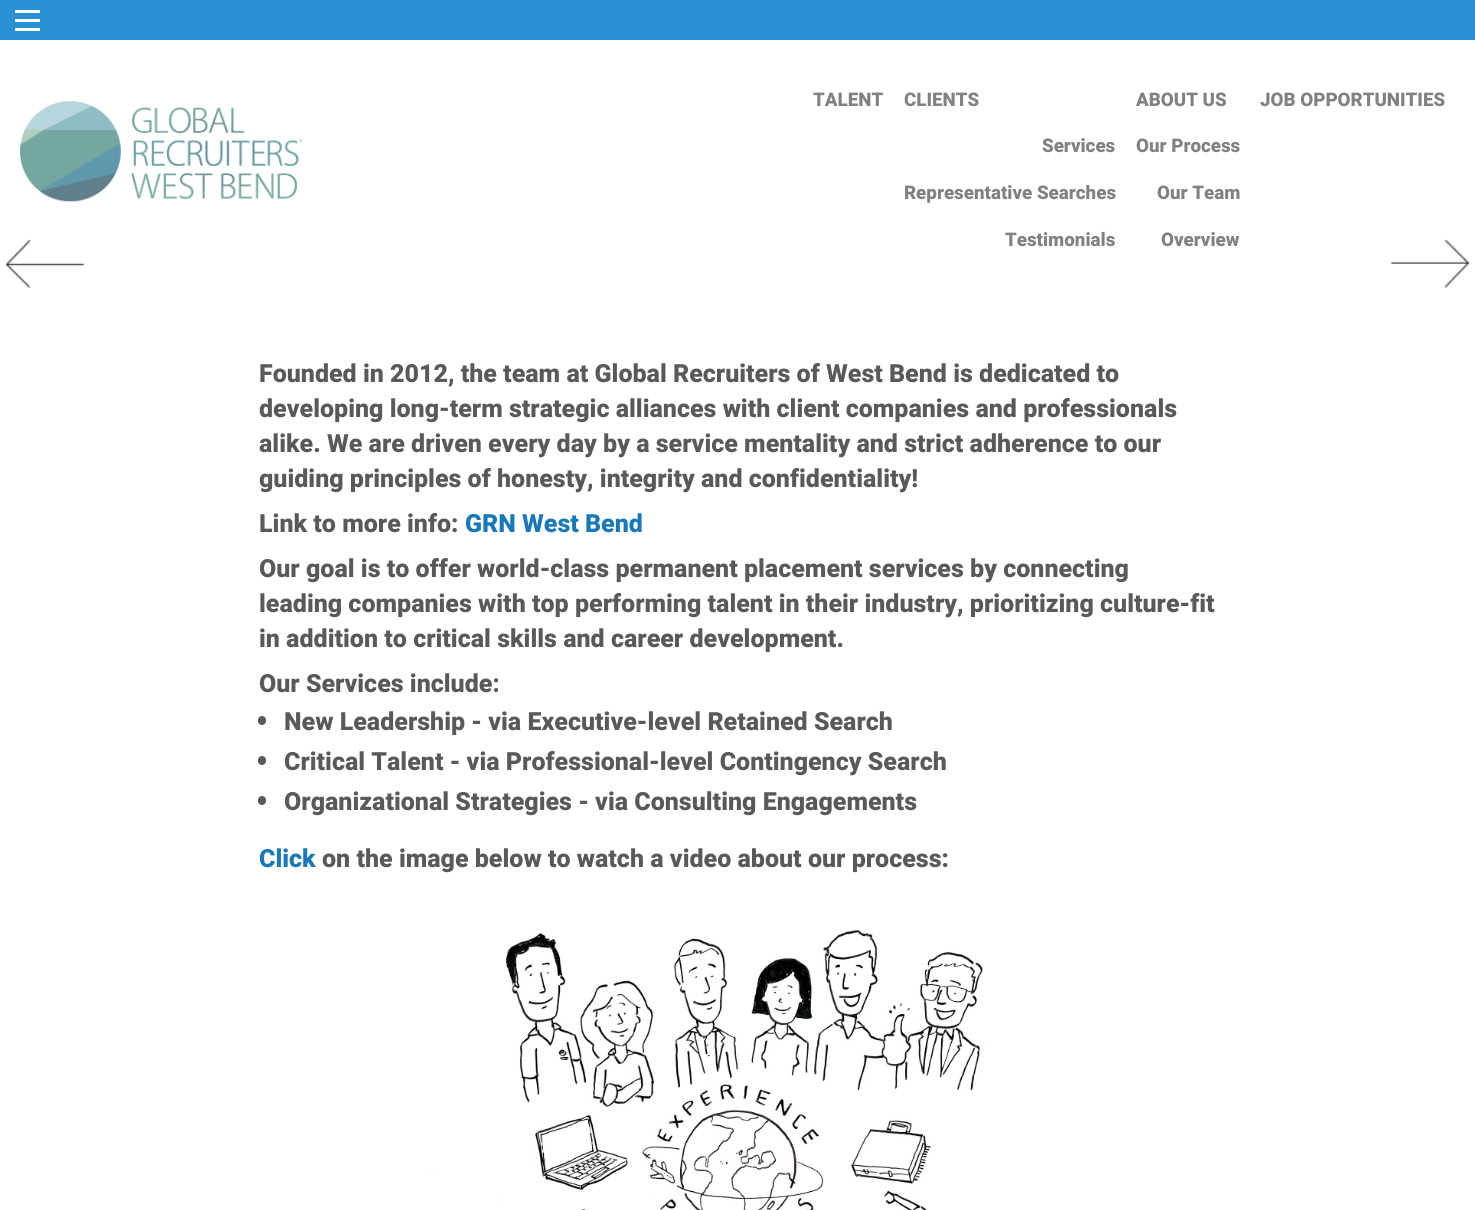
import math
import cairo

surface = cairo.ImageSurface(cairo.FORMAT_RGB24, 1475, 1210)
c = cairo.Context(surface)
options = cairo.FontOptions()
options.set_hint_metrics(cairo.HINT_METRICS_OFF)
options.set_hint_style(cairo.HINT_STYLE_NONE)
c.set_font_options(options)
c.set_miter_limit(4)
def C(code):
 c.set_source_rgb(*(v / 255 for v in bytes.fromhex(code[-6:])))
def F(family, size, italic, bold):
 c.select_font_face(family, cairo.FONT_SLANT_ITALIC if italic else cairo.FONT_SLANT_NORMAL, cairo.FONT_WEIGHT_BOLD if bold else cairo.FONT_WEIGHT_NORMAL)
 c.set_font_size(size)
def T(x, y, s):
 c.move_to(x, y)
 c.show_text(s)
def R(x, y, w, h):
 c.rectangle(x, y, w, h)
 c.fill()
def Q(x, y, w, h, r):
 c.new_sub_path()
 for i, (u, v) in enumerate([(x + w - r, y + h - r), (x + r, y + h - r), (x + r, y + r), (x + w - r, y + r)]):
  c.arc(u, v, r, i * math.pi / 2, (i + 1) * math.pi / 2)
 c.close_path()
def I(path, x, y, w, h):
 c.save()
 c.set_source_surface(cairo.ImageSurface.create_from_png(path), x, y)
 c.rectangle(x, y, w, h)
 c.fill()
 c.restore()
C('ffffff')
c.paint()
C('2a92d4')
R(0,0,1475,40)
C('fefefe')
R(15,28,25,3)
R(15,19,25,3)
R(15,10,25,3)
I('1.png',20,101,283,101)
F('Heebo ExtraBold',18.75,0,0)
C('818182')
T(813,106,'TALENT')
T(904,106,'CLIENTS')
T(1042,152,'Services')
T(904,199,'Representative Searches')
T(1005,246,'Testimonials')
T(1136,106,'ABOUT US')
T(1136,152,'Our Process')
T(1157,199,'Our Team')
T(1161,246,'Overview')
T(1260,106,'JOB OPPORTUNITIES')
I('2.png',6,239,78,49)
I('3.png',1391,239,78,49)
F('Heebo ExtraBold',25,0,0)
C('595959')
T(259,382,'Founded in 2012, the team at Global Recruiters of West Bend is dedicated to')
T(259,417,'developing long-term strategic alliances with client companies and professionals')
T(259,452,'alike. We are driven every day by a service mentality and strict adherence to our')
T(259,487,'guiding principles of honesty, integrity and confidentiality!')
T(259,532,'Link to more info:')
C('1779ba')
T(465,532,'GRN West Bend')
C('595959')
T(259,577,'Our goal is to offer world-class permanent placement services by connecting')
T(259,612,'leading companies with top performing talent in their industry, prioritizing culture-fit')
T(259,647,'in addition to critical skills and career development.')
T(259,692,'Our Services include:')
Q(258,716,8,9,4)
c.fill()
T(284,730,'New Leadership - via Executive-level Retained Search')
Q(258,756,8,9,4)
c.fill()
T(284,770,'Critical Talent - via Professional-level Contingency Search')
Q(258,796,8,9,4)
c.fill()
T(284,810,'Organizational Strategies - via Consulting Engagements')
C('1779ba')
T(259,867,'Click')
C('595959')
T(322,867,'on the image below to watch a video about our process:')
I('4.png',431,929,552,281)
surface.write_to_png('o.png')
